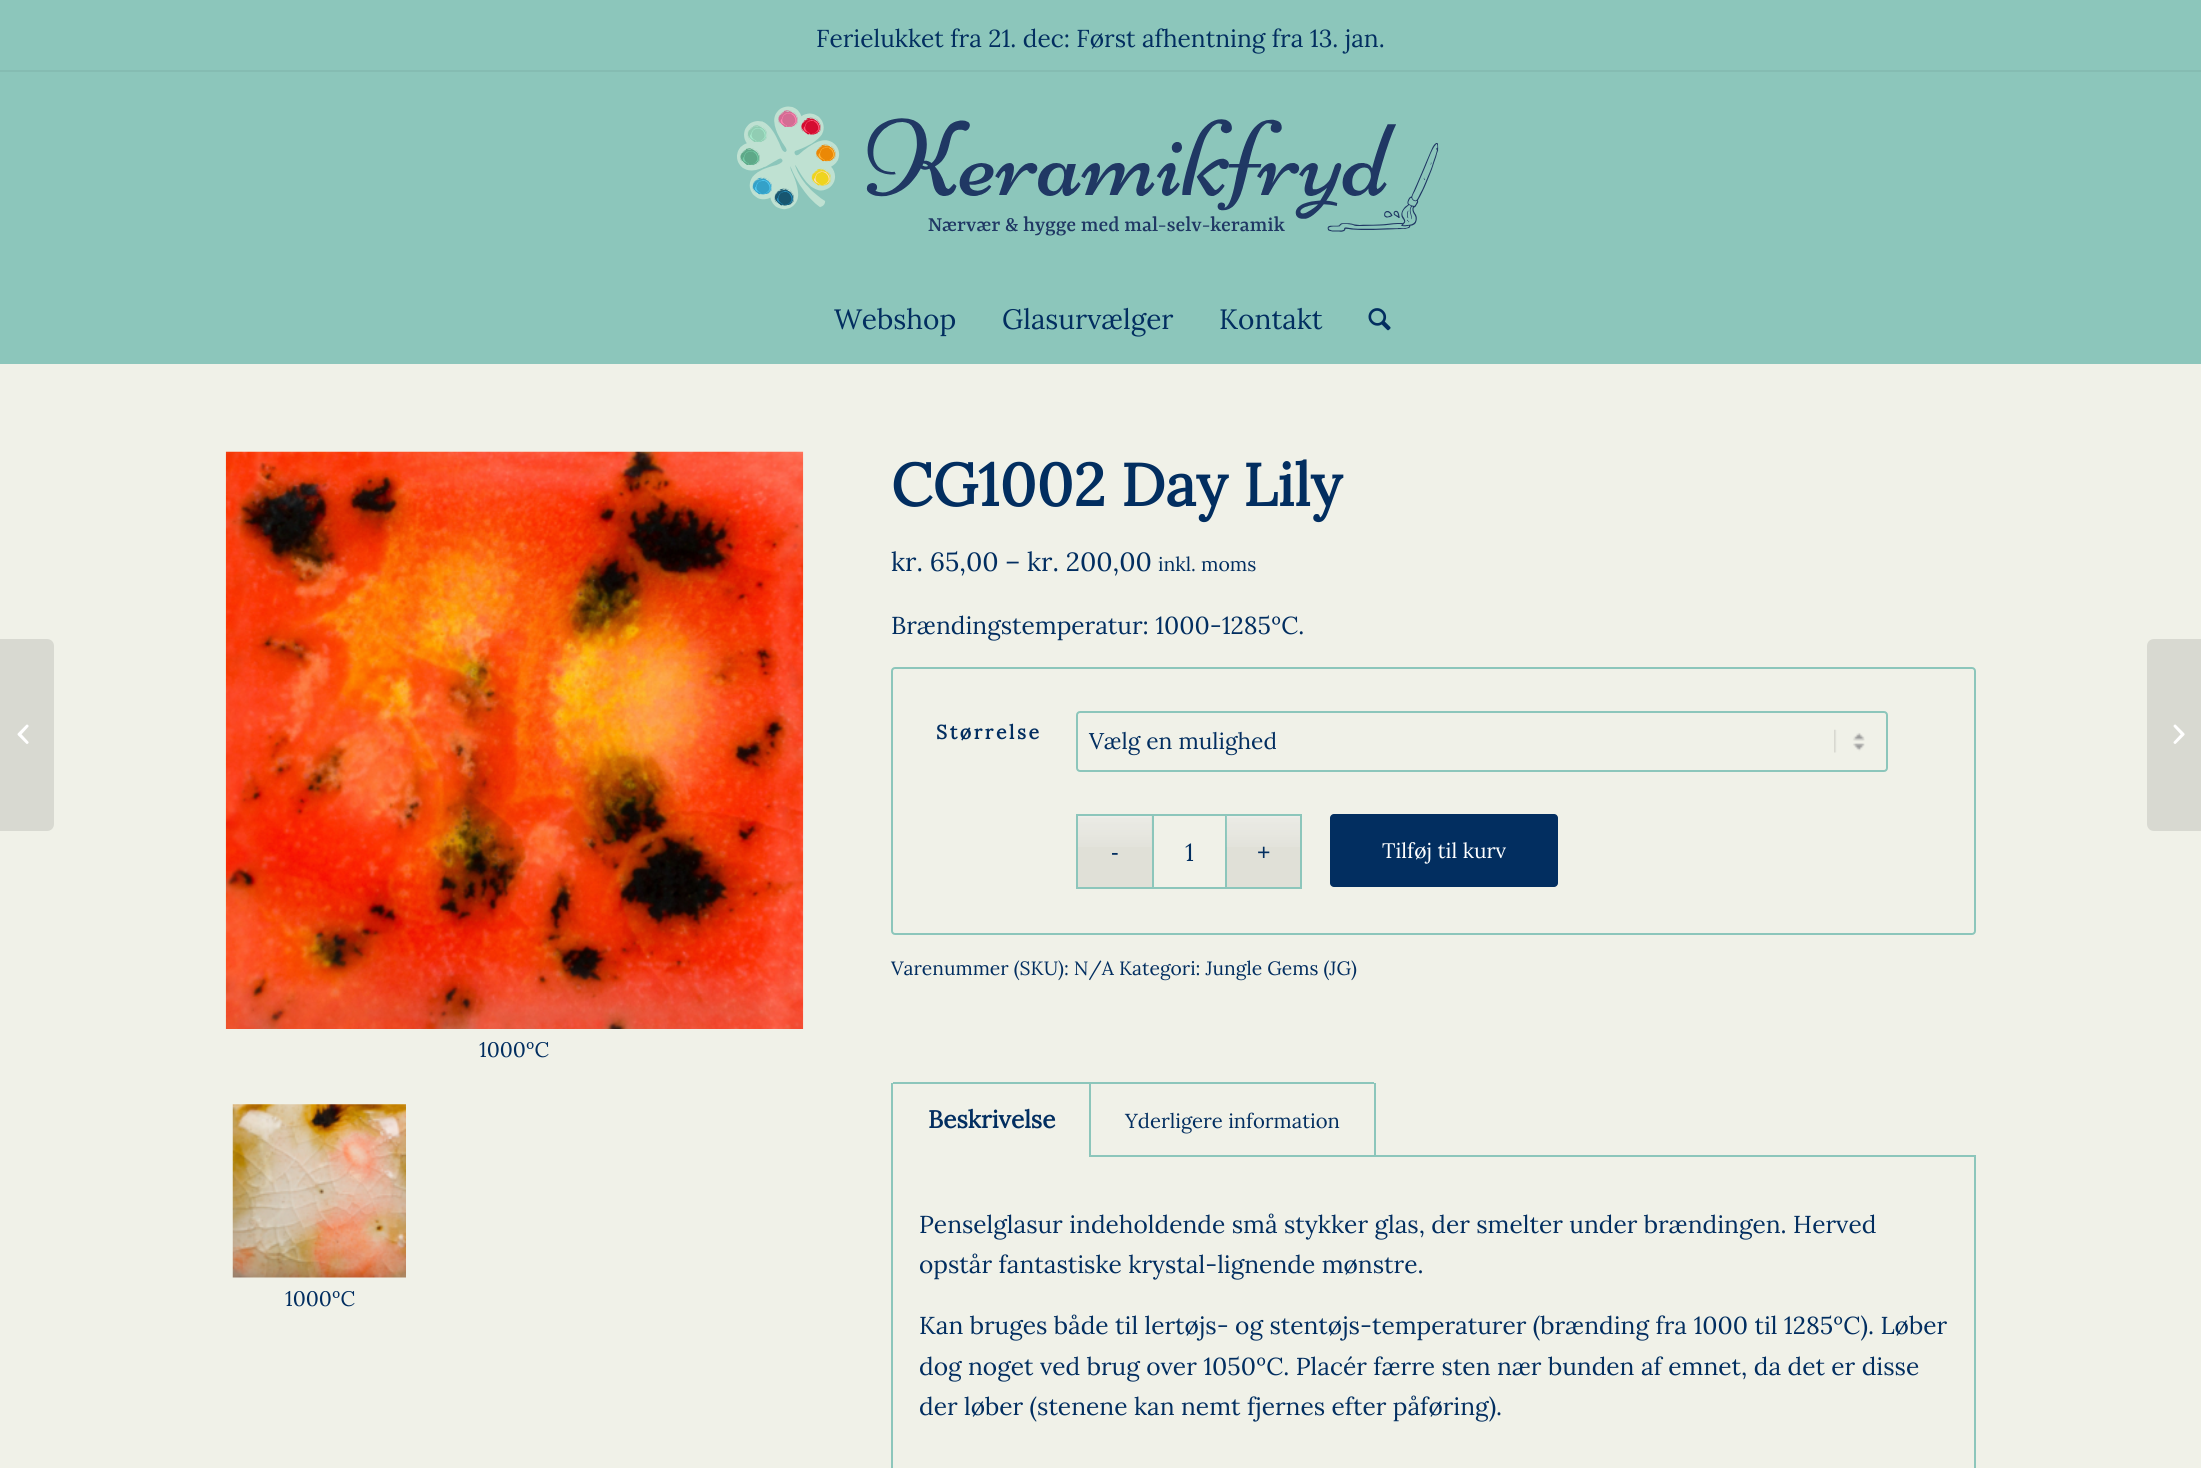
import math
import cairo

surface = cairo.ImageSurface(cairo.FORMAT_RGB24, 2201, 1468)
c = cairo.Context(surface)
options = cairo.FontOptions()
options.set_hint_metrics(cairo.HINT_METRICS_OFF)
options.set_hint_style(cairo.HINT_STYLE_NONE)
c.set_font_options(options)
c.set_miter_limit(4)
def C(code):
 c.set_source_rgb(*(v / 255 for v in bytes.fromhex(code[-6:])))
def F(family, size, italic, bold):
 c.select_font_face(family, cairo.FONT_SLANT_ITALIC if italic else cairo.FONT_SLANT_NORMAL, cairo.FONT_WEIGHT_BOLD if bold else cairo.FONT_WEIGHT_NORMAL)
 c.set_font_size(size)
def T(x, y, s):
 c.move_to(x, y)
 c.show_text(s)
def L(x, y, s, letter, word):
 c.move_to(x, y)
 for ch in s:
  c.show_text(ch)
  c.rel_move_to(letter + word * (ch == ' '), 0)
def R(x, y, w, h):
 c.rectangle(x, y, w, h)
 c.fill()
def Q(x, y, w, h, r):
 c.new_sub_path()
 for i, (u, v) in enumerate([(x + w - r, y + h - r), (x + r, y + h - r), (x + r, y + r), (x + w - r, y + r)]):
  c.arc(u, v, r, i * math.pi / 2, (i + 1) * math.pi / 2)
 c.close_path()
def I(path, x, y, w, h):
 c.save()
 c.set_source_surface(cairo.ImageSurface.create_from_png(path), x, y)
 c.rectangle(x, y, w, h)
 c.fill()
 c.restore()
C('8cc6bb')
c.paint()
C('85bcb2')
R(0,70,2201,2)
F('Lora',24.5,0,0)
C('022e60')
T(816,47,'Ferielukket fra 21. dec: Først afhentning fra 13. jan.')
I('1.png',737,106,702,130)
F('Lora',28,0,0)
T(834,329,'Webshop')
T(1002,329,'Glasurvælger')
T(1219,329,'Kontakt')
I('2.png',1368,308,23,23)
C('f0f1e8')
R(0,364,2201,1104)
C('d8d9d1')
c.new_path()
c.move_to(0,639)
c.line_to(47,639)
c.curve_to(51,639,54,642,54,646)
c.line_to(54,824)
c.curve_to(54,828,51,831,47,831)
c.line_to(0,831)
c.close_path()
c.fill()
I('3.png',17,724,12,20)
I('4.png',225,451,579,578)
F('Lora',21,0,0)
C('022e60')
T(479,1057,'1000ºC')
I('5.png',232,1104,174,174)
T(285,1306,'1000ºC')
F('Lora',59.5,0,1)
T(891,506,'CG1002 Day Lily')
F('Lora',26.25,0,0)
T(891,571,'kr. 65,00')
T(1005,571,'–')
T(1027,571,'kr. 200,00')
F('Lora',19.5,0,0)
T(1158,571,'inkl. moms')
F('Lora',24.5,0,0)
T(891,634,'Brændingstemperatur: 1000-1285ºC.')
Q(892,668,1083,266,3)
C('8cc6bb')
c.stroke()
F('Lora',19.5,0,1)
C('022e60')
L(936,739,'Størrelse',2.6,0)
I('6.png',1834,729,31,24)
Q(1077,712,810,59,3)
C('8cc6bb')
c.stroke()
F('Lora',22.75,0,0)
C('022e60')
T(1089,749,'Vælg en mulighed')
C('e0e0d7')
R(1078,816,74,71)
I('7.png',1078,816,74,31)
c.rectangle(1153,815,73,73)
C('8cc6bb')
c.stroke()
C('e0e0d7')
R(1227,816,73,71)
I('8.png',1226,815,74,32)
F('Liberation Sans',23,0,0)
C('022e60')
T(1111,860,'-')
C('8cc6bb')
R(1076,814,76,2)
R(1076,887,76,2)
R(1076,814,2,75)
F('Lora',24.5,0,0)
C('022e60')
T(1185,861,'1')
F('Liberation Sans',23,0,0)
T(1257,860,'+')
C('8cc6bb')
R(1227,814,75,2)
R(1300,814,2,75)
R(1227,887,75,2)
C('022e60')
Q(1330,814,228,73,4)
c.fill()
F('Lora',21,0,0)
C('ffffff')
T(1382,858,'Tilføj til kurv')
F('Lora',19.25,0,0)
C('022e60')
T(891,975,'Varenummer (SKU): N/A Kategori: Jungle Gems (JG)')
c.rectangle(892,1156,1083,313)
C('8cc6bb')
c.stroke()
C('f0f1e8')
R(891,1155,198,2)
C('8cc6bb')
R(893,1082,481,2)
R(1089,1082,2,75)
R(891,1083,2,74)
F('Lora',24.5,0,1)
C('022e60')
T(928,1128,'Beskrivelse')
C('8cc6bb')
R(1374,1083,2,74)
F('Lora',20.25,0,0)
C('022e60')
T(1125,1128,'Yderligere information')
F('Lora',24.5,0,0)
T(919,1233,'Penselglasur indeholdende små stykker glas, der smelter under brændingen. Herved')
T(919,1273,'opstår fantastiske krystal-lignende mønstre.')
T(919,1334,'Kan bruges både til lertøjs- og stentøjs-temperaturer (brænding fra 1000 til 1285ºC). Løber')
T(919,1375,'dog noget ved brug over 1050ºC. Placér færre sten nær bunden af emnet, da det er disse')
T(919,1415,'der løber (stenene kan nemt fjernes efter påføring).')
C('d8d9d1')
c.new_path()
c.move_to(2154,639)
c.line_to(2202,639)
c.line_to(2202,831)
c.line_to(2154,831)
c.curve_to(2150,831,2147,828,2147,824)
c.line_to(2147,646)
c.curve_to(2147,642,2150,639,2154,639)
c.close_path()
c.fill()
I('9.png',2173,724,12,20)
surface.write_to_png('o.png')
